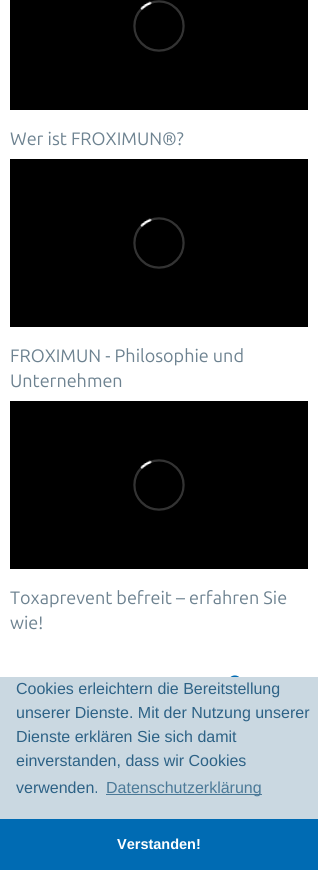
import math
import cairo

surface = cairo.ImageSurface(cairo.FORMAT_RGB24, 318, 870)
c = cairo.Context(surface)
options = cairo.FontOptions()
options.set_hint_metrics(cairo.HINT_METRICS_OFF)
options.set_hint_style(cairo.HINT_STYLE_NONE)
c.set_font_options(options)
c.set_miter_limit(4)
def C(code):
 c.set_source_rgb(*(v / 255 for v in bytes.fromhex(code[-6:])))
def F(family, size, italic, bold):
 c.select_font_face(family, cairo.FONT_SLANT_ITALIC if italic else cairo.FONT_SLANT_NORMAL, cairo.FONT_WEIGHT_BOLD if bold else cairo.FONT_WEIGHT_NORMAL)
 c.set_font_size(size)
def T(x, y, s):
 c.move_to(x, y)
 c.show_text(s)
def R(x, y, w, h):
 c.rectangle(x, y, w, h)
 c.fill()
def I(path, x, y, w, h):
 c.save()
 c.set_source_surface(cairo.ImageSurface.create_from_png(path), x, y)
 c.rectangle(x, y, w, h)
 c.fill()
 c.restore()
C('ffffff')
c.paint()
I('1.png',10,0,298,110)
F('Ubuntu',18,0,0)
C('6d8290')
T(10,145,'Wer ist FROXIMUN®?')
I('2.png',10,159,298,168)
T(10,362,'FROXIMUN - Philosophie und')
T(10,387,'Unternehmen')
I('2.png',10,401,298,168)
T(10,604,'Toxaprevent befreit – erfahren Sie')
T(10,629,'wie!')
I('3.png',230,675,9,2)
C('cad8e1')
R(0,677,318,142)
F('Liberation Sans',16,0,0)
C('2d6286')
T(16,694,'Cookies erleichtern die Bereitstellung')
T(16,718,'unserer Dienste. Mit der Nutzung unserer')
T(16,742,'Dienste erklären Sie sich damit')
T(16,766,'einverstanden, dass wir Cookies')
T(16,793,'verwenden.')
C('4c7a98')
R(106,794,156,1)
T(106,793,'Datenschutzerklärung')
C('006bb3')
R(0,819,318,51)
F('Liberation Sans',14.5,0,1)
C('ffffff')
T(117,849,'Verstanden!')
surface.write_to_png('o.png')
